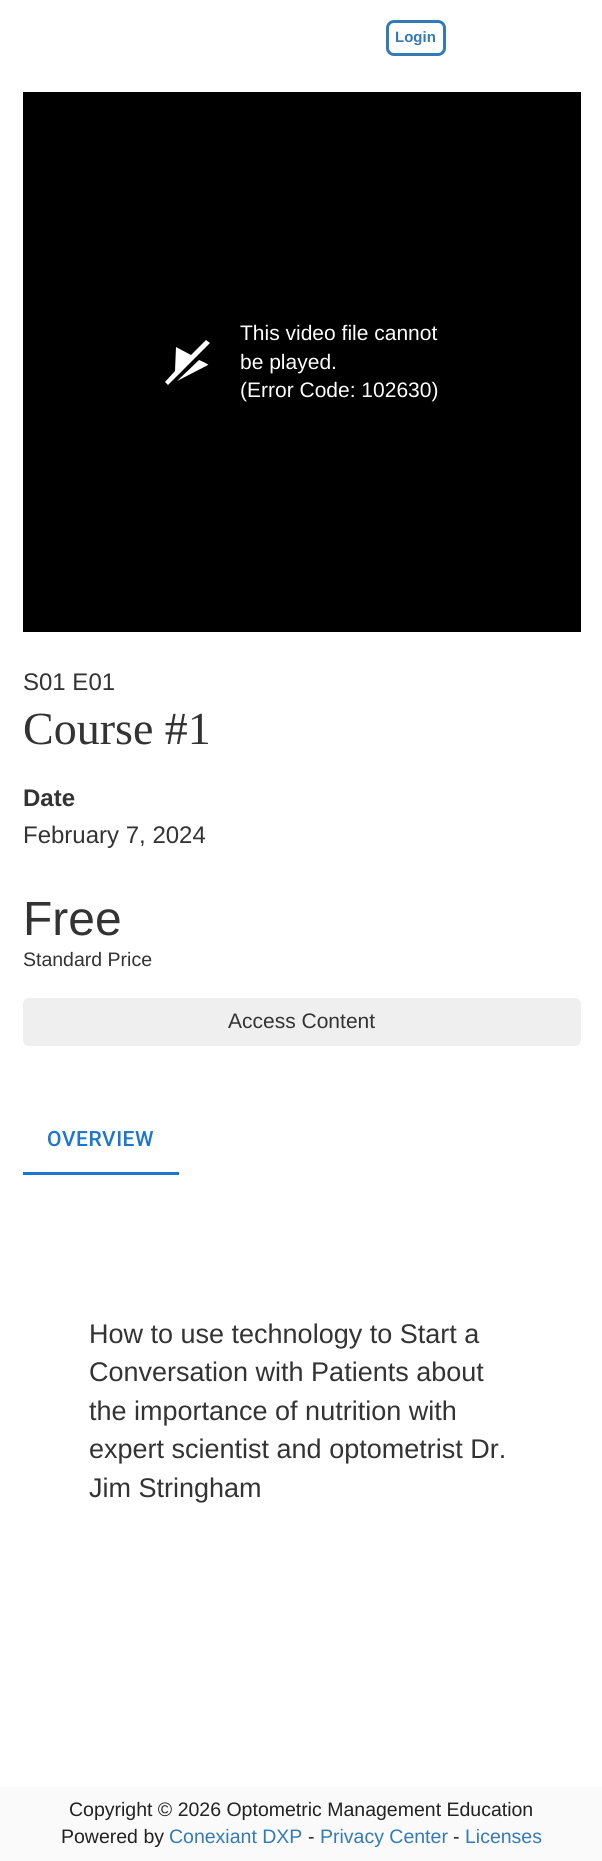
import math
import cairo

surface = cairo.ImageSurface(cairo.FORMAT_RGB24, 602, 1861)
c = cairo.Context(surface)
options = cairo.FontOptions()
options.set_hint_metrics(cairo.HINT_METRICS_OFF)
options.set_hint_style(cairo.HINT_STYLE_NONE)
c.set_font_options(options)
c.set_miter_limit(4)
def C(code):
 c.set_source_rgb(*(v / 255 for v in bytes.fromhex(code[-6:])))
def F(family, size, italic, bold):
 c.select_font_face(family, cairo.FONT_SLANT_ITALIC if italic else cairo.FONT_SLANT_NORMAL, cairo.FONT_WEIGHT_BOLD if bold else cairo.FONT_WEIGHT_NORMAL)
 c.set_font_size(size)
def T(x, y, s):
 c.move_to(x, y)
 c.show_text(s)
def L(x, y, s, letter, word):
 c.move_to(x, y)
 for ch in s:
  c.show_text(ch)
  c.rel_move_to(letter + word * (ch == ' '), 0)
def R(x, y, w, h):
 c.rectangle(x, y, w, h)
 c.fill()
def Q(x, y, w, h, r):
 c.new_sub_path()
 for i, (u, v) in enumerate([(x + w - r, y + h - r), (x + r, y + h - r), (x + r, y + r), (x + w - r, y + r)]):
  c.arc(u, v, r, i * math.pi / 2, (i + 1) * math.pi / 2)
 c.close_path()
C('ffffff')
c.paint()
Q(387.5,21.5,57,33,6.5)
C('337ab7')
c.set_line_width(3)
c.stroke()
F('Liberation Sans',15,0,1)
T(395,42,'Login')
C('000000')
R(23,92,558,540)
C('ffffff')
c.new_path()
c.move_to(208,365)
c.line_to(177,381)
c.line_to(199,360)
c.curve_to(208,364,209,365,208,365)
c.close_path()
c.move_to(206,340)
c.line_to(191,355)
c.line_to(176,347)
c.line_to(175,371)
c.line_to(165,382)
c.line_to(168,385)
c.line_to(210,343)
c.close_path()
c.fill()
F('Liberation Sans',21,0,0)
T(240,340,'This video file cannot')
T(240,369,'be played.')
T(240,397,'(Error Code: 102630)')
F('Liberation Sans',24,0,0)
C('333333')
T(23,690,'S01 E01')
F('Liberation Serif',46,0,0)
T(23,744,'Course #1')
F('Liberation Sans',24,0,1)
T(23,806,'Date')
F('Liberation Sans',24,0,0)
T(23,843,'February 7, 2024')
F('Liberation Sans',48,0,0)
T(23,935,'Free')
F('Liberation Sans',19.5,0,0)
T(23,966,'Standard Price')
C('efefef')
Q(23,998,558,48,6)
c.fill()
F('Liberation Sans',21,0,0)
C('333333')
T(228,1028,'Access Content')
F('Roboto Medium',21,0,0)
C('1976d2')
L(47,1146,'OVERVIEW',.5,0)
R(23,1172,156,3)
F('Liberation Sans',27,0,0)
C('333333')
T(89,1343,'How to use technology to Start a')
T(89,1381,'Conversation with Patients about')
T(89,1420,'the importance of nutrition with')
T(89,1458,'expert scientist and optometrist Dr.')
T(89,1497,'Jim Stringham')
C('fafafa')
R(0,1787,602,74)
F('Liberation Sans',19.5,0,0)
C('222222')
T(69,1816,'Copyright © 2026 Optometric Management Education')
T(61,1843,'Powered by')
C('337ab7')
T(169,1843,'Conexiant DXP')
C('222222')
T(308,1843,'-')
C('337ab7')
T(320,1843,'Privacy Center')
C('222222')
T(453,1843,'-')
C('337ab7')
T(465,1843,'Licenses')
surface.write_to_png('o.png')
